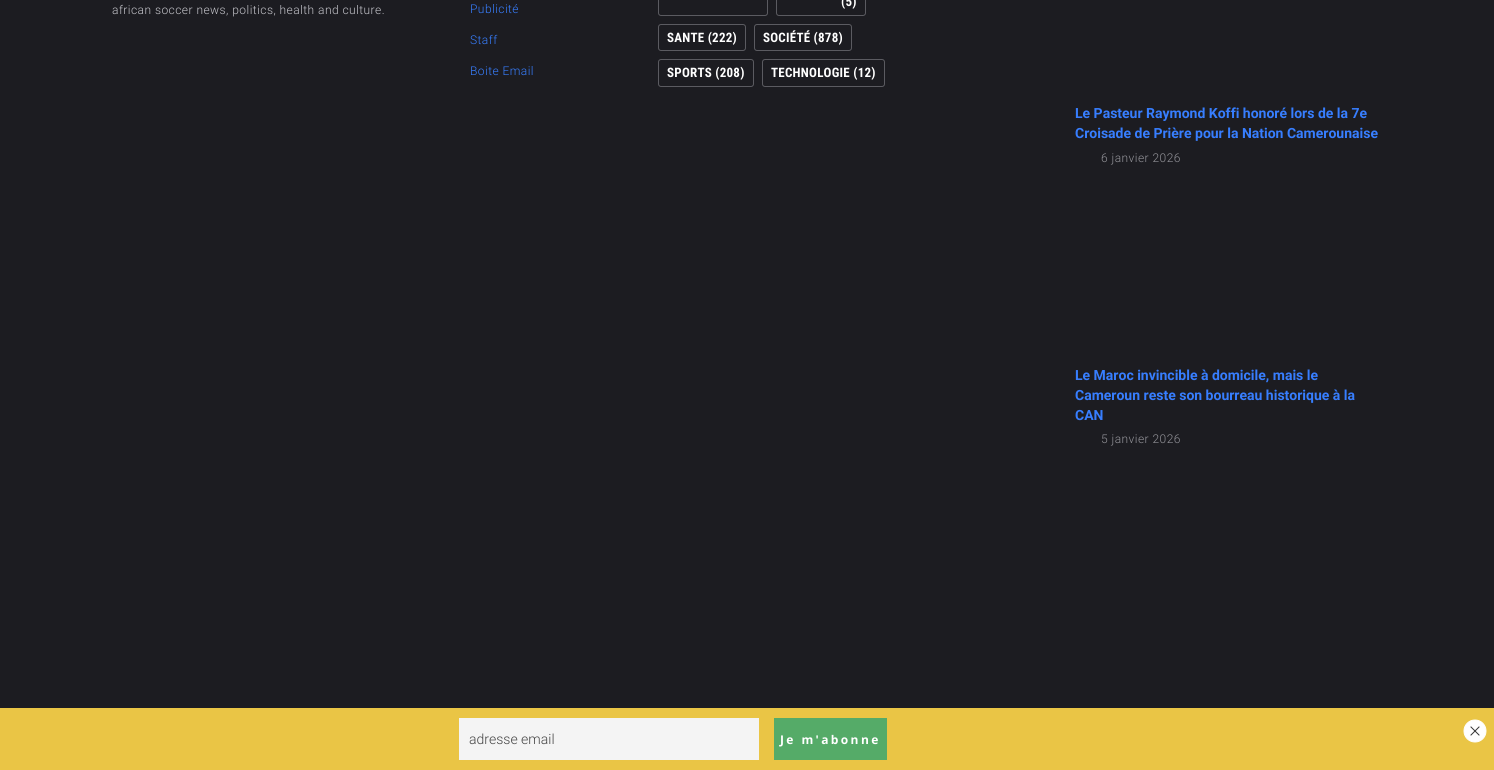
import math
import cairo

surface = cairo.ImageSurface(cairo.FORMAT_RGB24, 1494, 770)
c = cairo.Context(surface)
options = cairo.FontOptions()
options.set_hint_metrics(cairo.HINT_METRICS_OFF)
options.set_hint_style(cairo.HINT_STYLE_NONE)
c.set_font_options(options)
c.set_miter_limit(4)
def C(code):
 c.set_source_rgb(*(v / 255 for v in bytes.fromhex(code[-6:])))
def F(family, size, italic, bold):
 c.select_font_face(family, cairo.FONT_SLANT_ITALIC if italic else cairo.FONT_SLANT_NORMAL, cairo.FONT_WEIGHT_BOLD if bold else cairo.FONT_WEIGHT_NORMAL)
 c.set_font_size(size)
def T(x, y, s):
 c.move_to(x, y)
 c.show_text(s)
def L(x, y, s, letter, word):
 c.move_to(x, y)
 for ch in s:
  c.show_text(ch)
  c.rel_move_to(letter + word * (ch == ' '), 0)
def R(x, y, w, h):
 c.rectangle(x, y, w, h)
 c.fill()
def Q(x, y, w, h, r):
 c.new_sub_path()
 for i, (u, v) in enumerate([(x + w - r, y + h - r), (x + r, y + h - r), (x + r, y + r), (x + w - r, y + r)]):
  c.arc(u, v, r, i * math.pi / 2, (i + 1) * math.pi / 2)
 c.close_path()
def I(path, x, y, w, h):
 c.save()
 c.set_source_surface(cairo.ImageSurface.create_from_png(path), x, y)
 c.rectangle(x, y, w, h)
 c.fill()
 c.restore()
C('1c1c21')
c.paint()
F('Roboto Light',12,0,0)
C('c3c3c9')
L(112,14,'african soccer news, politics, health and culture.',.45,0)
C('377eff')
L(470,13,'Publicité',.45,0)
L(470,44,'Staff',.45,0)
L(470,75,'Boite Email',.45,0)
Q(658.5,-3.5,109,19,2.5)
C('5b5b61')
c.set_line_width(1)
c.stroke()
Q(776.5,-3.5,89,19,2.5)
c.stroke()
F('Roboto Condensed',13,0,1)
C('ffffff')
L(841,6,'(5)',.25,0)
Q(658.5,24.5,87,26,2.5)
C('5b5b61')
c.stroke()
C('ffffff')
L(667,42,'SANTE (222)',.25,0)
Q(754.5,24.5,97,26,2.5)
C('5b5b61')
c.stroke()
C('ffffff')
L(763,42,'SOCIÉTÉ (878)',.25,0)
Q(658.5,59.5,95,27,2.5)
C('5b5b61')
c.stroke()
C('ffffff')
L(667,77,'SPORTS (208)',.25,0)
Q(762.5,59.5,122,27,2.5)
C('5b5b61')
c.stroke()
C('ffffff')
L(771,77,'TECHNOLOGIE (12)',.25,0)
F('Roboto',14,0,1)
C('377eff')
T(1075,118,'Le Pasteur Raymond Koffi honoré lors de la 7e')
T(1075,138,'Croisade de Prière pour la Nation Camerounaise')
F('Roboto Light',12,0,0)
C('939399')
L(1101,162,'6 janvier 2026',.45,0)
F('Roboto',14,0,1)
C('377eff')
T(1075,380,'Le Maroc invincible à domicile, mais le')
T(1075,400,'Cameroun reste son bourreau historique à la')
T(1075,420,'CAN')
F('Roboto Light',12,0,0)
C('939399')
L(1101,443,'5 janvier 2026',.45,0)
C('eac545')
R(0,708,1494,62)
C('f4f4f4')
R(459,718,300,42)
F('Roboto Light',14,0,0)
C('444444')
T(469,744,'adresse email')
C('55ab68')
R(774,718,113,42)
F('Open Sans',12,0,1)
C('ffffff')
L(780,744,'Je m\'abonne',2.4,0)
I('1.png',1463,719,24,24)
surface.write_to_png('o.png')
